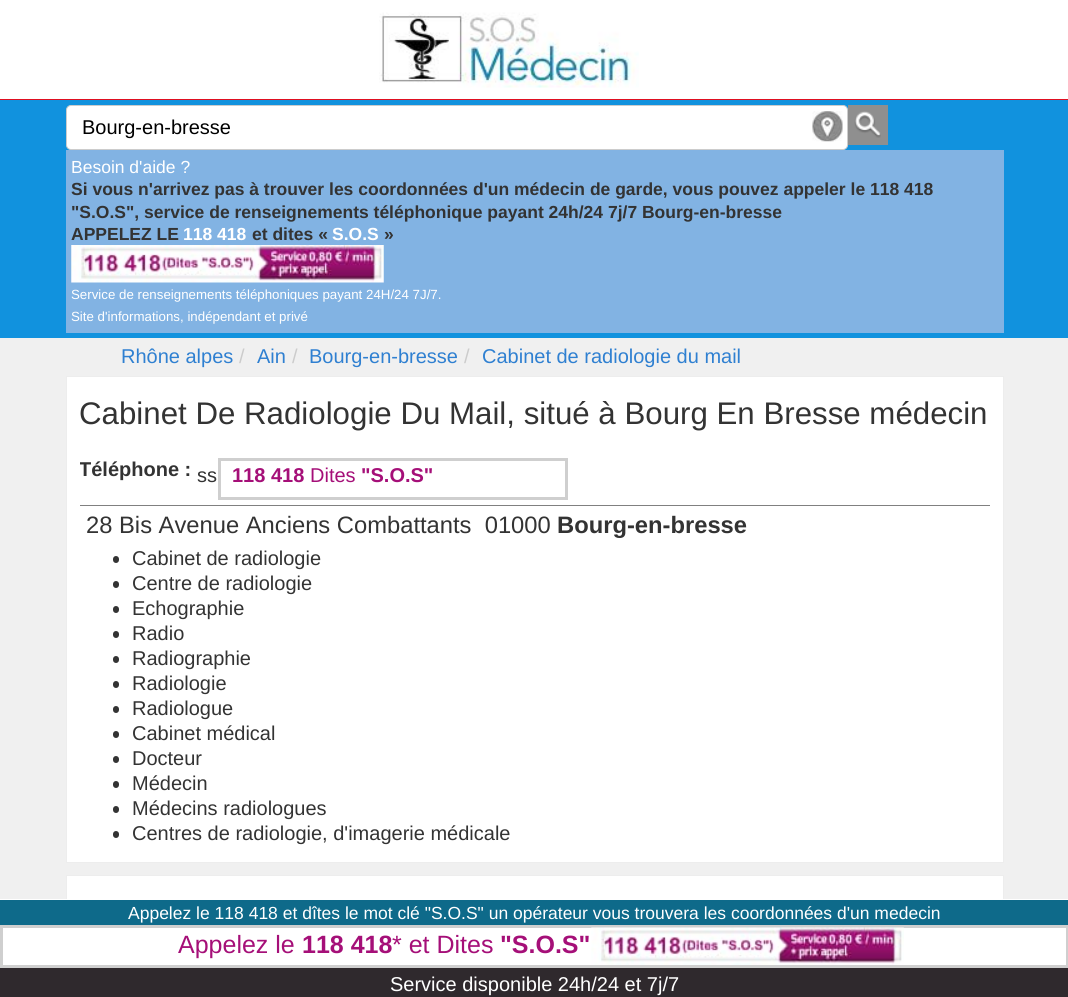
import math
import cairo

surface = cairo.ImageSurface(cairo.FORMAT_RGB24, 1068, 997)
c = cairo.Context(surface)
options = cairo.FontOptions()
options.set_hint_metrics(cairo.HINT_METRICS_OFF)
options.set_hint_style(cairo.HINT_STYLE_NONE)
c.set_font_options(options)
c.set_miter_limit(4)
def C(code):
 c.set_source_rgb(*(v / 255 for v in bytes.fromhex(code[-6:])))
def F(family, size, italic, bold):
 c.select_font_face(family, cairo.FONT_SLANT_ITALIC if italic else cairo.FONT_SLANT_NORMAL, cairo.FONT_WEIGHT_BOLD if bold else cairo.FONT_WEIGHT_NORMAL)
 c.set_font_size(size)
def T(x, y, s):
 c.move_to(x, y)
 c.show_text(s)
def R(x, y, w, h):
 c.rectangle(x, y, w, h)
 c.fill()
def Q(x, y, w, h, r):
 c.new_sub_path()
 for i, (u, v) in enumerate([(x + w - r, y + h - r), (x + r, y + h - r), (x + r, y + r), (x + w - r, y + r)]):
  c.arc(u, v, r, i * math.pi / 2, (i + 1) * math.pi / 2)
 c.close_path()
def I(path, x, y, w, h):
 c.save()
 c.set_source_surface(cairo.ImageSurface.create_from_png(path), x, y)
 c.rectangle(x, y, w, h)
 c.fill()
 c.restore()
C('f0f0f0')
c.paint()
C('ffffff')
R(0,0,1068,99)
C('df0f21')
R(0,99,1068,1)
I('1.png',379,12,260,76)
C('1192de')
R(0,100,1068,238)
C('ffffff')
Q(66.5,105.5,781,44,4.5)
c.fill_preserve()
C('cccccc')
c.set_line_width(1)
c.stroke()
F('Liberation Sans',20,0,0)
C('000000')
T(82,134,'Bourg-en-bresse')
I('2.png',812,111,31,31)
C('8f8f8f')
R(848,105,40,40)
I('3.png',854,111,27,27)
C('82b3e3')
R(66,150,938,183)
F('Liberation Sans',17.5,0,0)
C('ffffff')
T(71,173,'Besoin d\'aide ?')
F('Liberation Sans',17.5,0,1)
C('333333')
T(71,195,'Si vous n\'arrivez pas à trouver les coordonnées d\'un médecin de garde, vous pouvez appeler le 118 418')
T(71,218,'"S.O.S", service de renseignements téléphonique payant 24h/24 7j/7 Bourg-en-bresse')
T(71,240,'APPELEZ LE')
C('ffffff')
T(183,240,'118 418')
C('333333')
T(252,240,'et dites «')
C('ffffff')
T(332,240,'S.O.S')
C('333333')
T(384,240,'»')
I('4.png',71,245,313,38)
F('Liberation Sans',13.3,0,0)
C('ffffff')
T(71,299,'Service de renseignements téléphoniques payant 24H/24 7J/7.')
T(71,321,'Site d\'informations, indépendant et privé')
F('Liberation Sans',20,0,0)
C('2f80d1')
T(121,363,'Rhône alpes')
C('cccccc')
T(239,363,'/')
C('2f80d1')
T(257,363,'Ain')
C('cccccc')
T(292,363,'/')
C('2f80d1')
T(309,363,'Bourg-en-bresse')
C('cccccc')
T(464,363,'/')
C('2f80d1')
T(482,363,'Cabinet de radiologie du mail')
C('ffffff')
c.rectangle(66.5,376.5,937,486)
c.fill_preserve()
C('ededed')
c.stroke()
F('Liberation Sans',31.25,0,0)
C('333333')
T(79,424,'Cabinet De Radiologie Du Mail, situé à Bourg En Bresse médecin')
C('808080')
R(80,505,910,1)
c.save()
c.rectangle(80,458,910,47)
c.clip()
F('Liberation Sans',20,0,1)
C('333333')
T(79,476,'Téléphone :')
c.restore()
F('Liberation Sans',20,0,0)
C('333333')
T(197,482,'ss')
c.rectangle(219.5,459.5,347,39)
C('cfcfcf')
c.set_line_width(3)
c.stroke()
F('Liberation Sans',20,0,1)
C('a50f78')
T(232,482,'118 418')
F('Liberation Sans',20,0,0)
T(310,482,'Dites')
F('Liberation Sans',20,0,1)
T(361,482,'"S.O.S"')
F('Liberation Sans',23.75,0,0)
C('333333')
T(86,533,'28 Bis Avenue Anciens Combattants  01000')
F('Liberation Sans',23.75,0,1)
T(557,533,'Bourg-en-bresse')
Q(113,556,6,7,3)
c.fill()
F('Liberation Sans',20,0,0)
T(132,565,'Cabinet de radiologie')
Q(113,581,6,7,3)
c.fill()
T(132,590,'Centre de radiologie')
Q(113,606,6,7,3)
c.fill()
T(132,615,'Echographie')
Q(113,631,6,7,3)
c.fill()
T(132,640,'Radio')
Q(113,656,6,7,3)
c.fill()
T(132,665,'Radiographie')
Q(113,681,6,7,3)
c.fill()
T(132,690,'Radiologie')
Q(113,706,6,7,3)
c.fill()
T(132,715,'Radiologue')
Q(113,731,6,7,3)
c.fill()
T(132,740,'Cabinet médical')
Q(113,756,6,7,3)
c.fill()
T(132,765,'Docteur')
Q(113,781,6,7,3)
c.fill()
T(132,790,'Médecin')
Q(113,806,6,7,3)
c.fill()
T(132,815,'Médecins radiologues')
Q(113,831,6,7,3)
c.fill()
T(132,840,'Centres de radiologie, d\'imagerie médicale')
C('ffffff')
R(67,876,936,23)
c.rectangle(66.5,875.5,937,82)
C('ededed')
c.set_line_width(1)
c.stroke()
C('ffffff')
R(0,899,1068,1)
C('0e6a8a')
R(0,900,1068,25)
F('Liberation Sans',17.5,0,0)
C('ffffff')
T(128,919,'Appelez le 118 418 et dîtes le mot clé "S.O.S" un opérateur vous trouvera les coordonnées d\'un medecin')
c.rectangle(1.5,926.5,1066,40)
c.fill_preserve()
C('cfcfcf')
c.set_line_width(3)
c.stroke()
F('Liberation Sans',25,0,0)
C('a50f78')
T(178,953,'Appelez le')
F('Liberation Sans',25,0,1)
T(302,953,'118 418')
F('Liberation Sans',25,0,0)
T(392,953,'* et Dites')
F('Liberation Sans',25,0,1)
T(500,953,'"S.O.S"')
I('5.png',591,927,313,38)
C('2f292d')
R(0,968,1068,29)
F('Liberation Sans',20,0,0)
C('ffffff')
T(390,991,'Service disponible 24h/24 et 7j/7')
surface.write_to_png('o.png')
